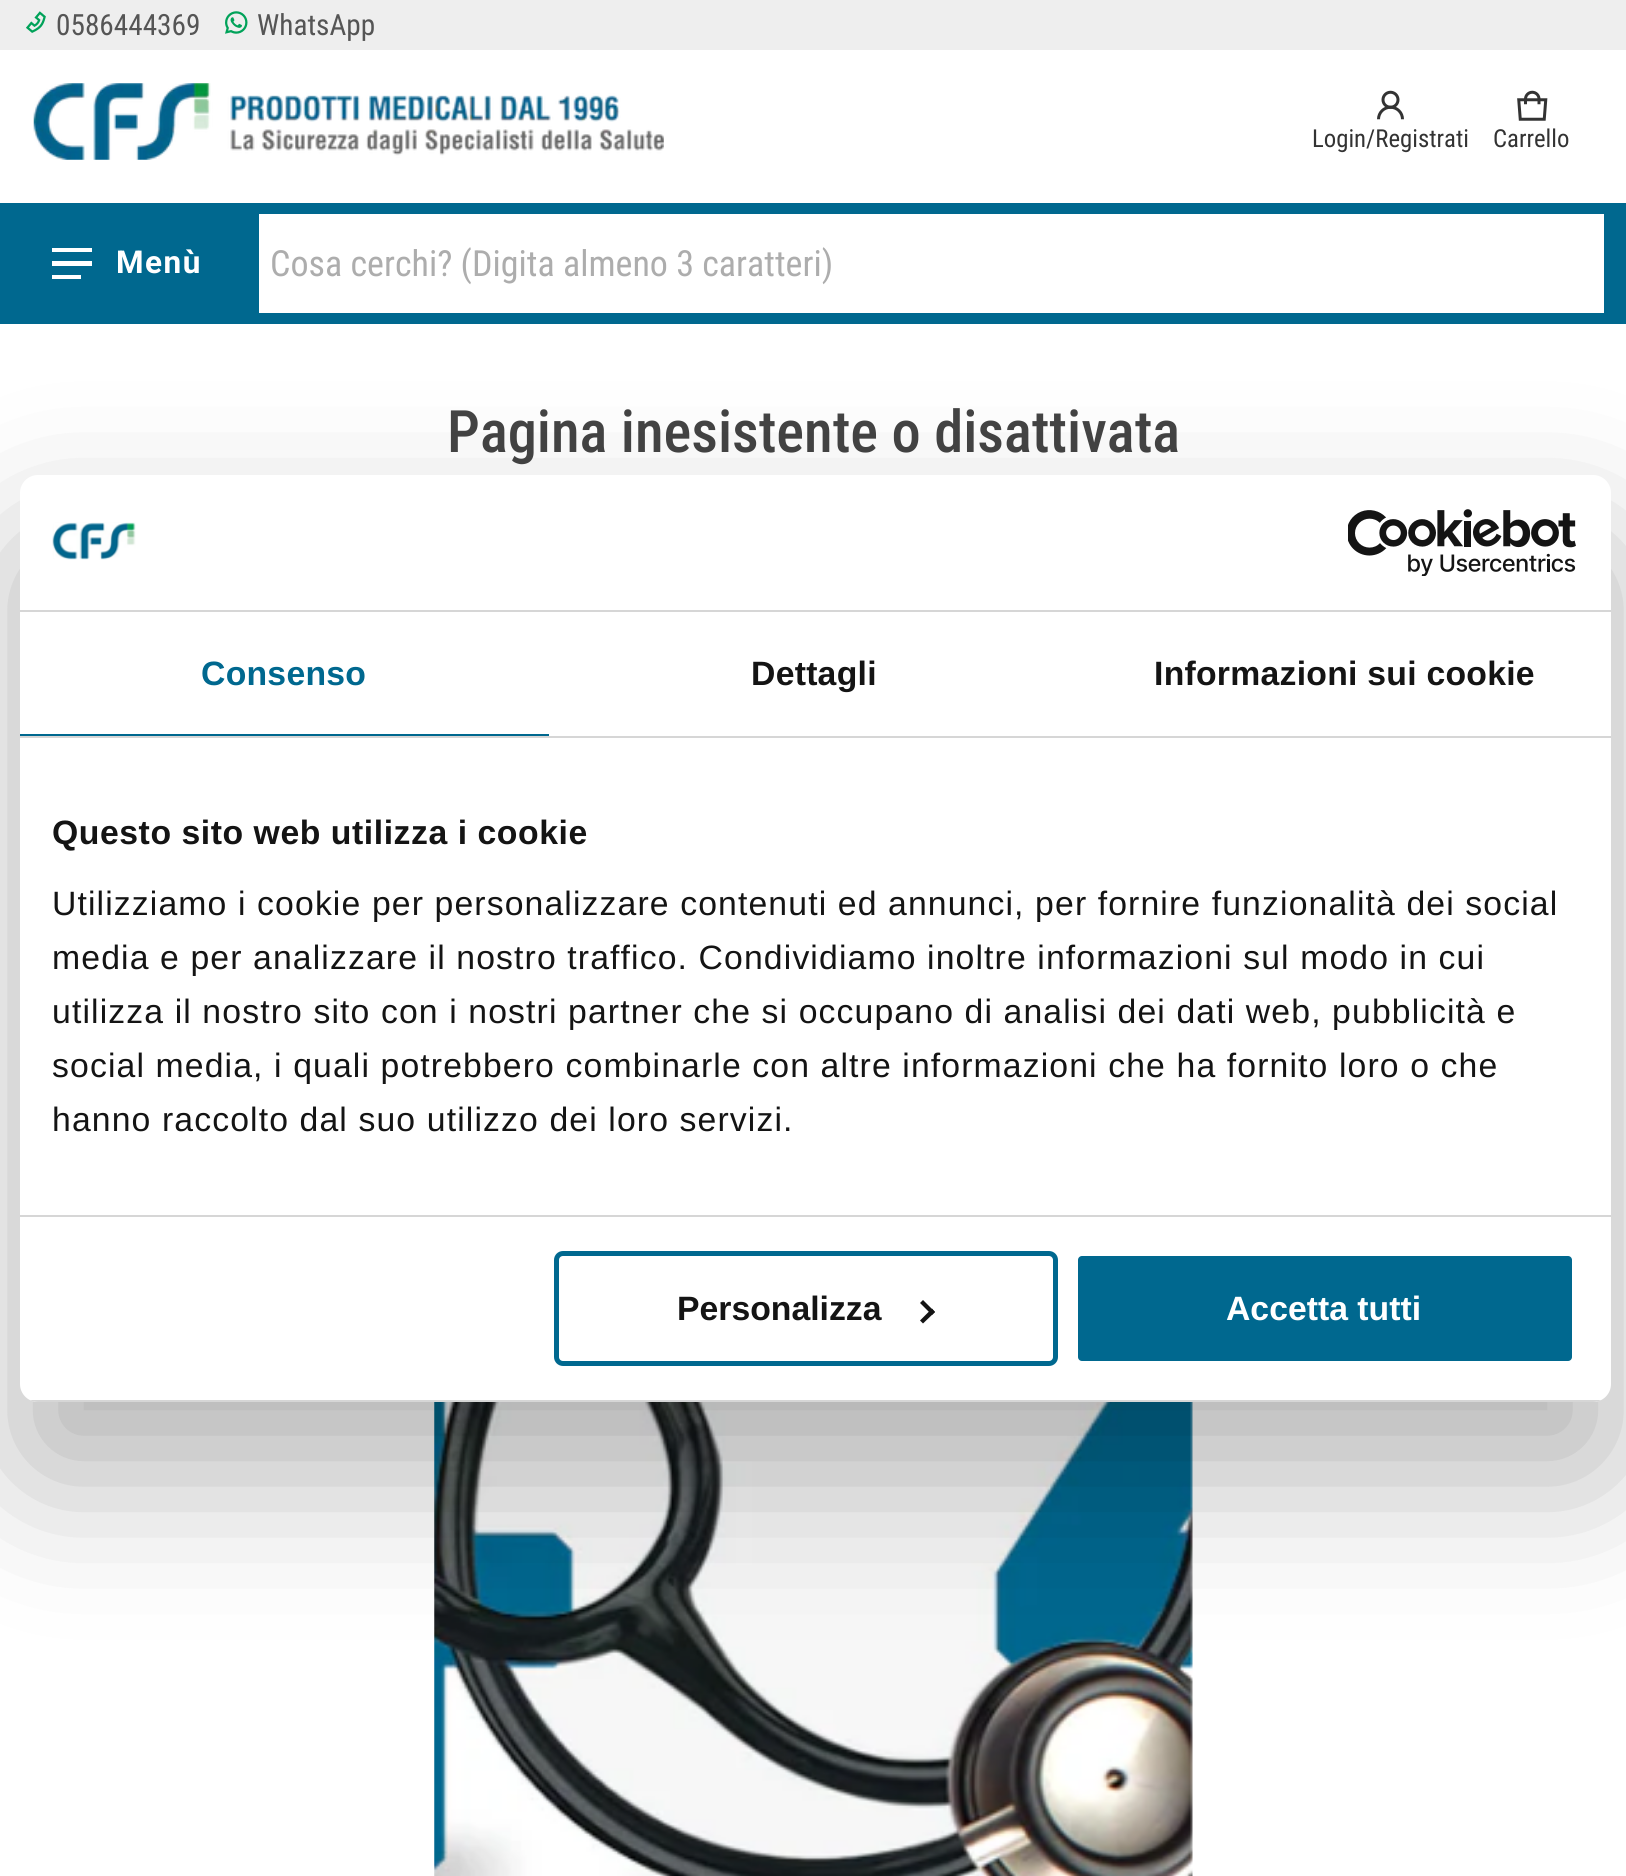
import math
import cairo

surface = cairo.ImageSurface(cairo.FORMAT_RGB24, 1626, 1876)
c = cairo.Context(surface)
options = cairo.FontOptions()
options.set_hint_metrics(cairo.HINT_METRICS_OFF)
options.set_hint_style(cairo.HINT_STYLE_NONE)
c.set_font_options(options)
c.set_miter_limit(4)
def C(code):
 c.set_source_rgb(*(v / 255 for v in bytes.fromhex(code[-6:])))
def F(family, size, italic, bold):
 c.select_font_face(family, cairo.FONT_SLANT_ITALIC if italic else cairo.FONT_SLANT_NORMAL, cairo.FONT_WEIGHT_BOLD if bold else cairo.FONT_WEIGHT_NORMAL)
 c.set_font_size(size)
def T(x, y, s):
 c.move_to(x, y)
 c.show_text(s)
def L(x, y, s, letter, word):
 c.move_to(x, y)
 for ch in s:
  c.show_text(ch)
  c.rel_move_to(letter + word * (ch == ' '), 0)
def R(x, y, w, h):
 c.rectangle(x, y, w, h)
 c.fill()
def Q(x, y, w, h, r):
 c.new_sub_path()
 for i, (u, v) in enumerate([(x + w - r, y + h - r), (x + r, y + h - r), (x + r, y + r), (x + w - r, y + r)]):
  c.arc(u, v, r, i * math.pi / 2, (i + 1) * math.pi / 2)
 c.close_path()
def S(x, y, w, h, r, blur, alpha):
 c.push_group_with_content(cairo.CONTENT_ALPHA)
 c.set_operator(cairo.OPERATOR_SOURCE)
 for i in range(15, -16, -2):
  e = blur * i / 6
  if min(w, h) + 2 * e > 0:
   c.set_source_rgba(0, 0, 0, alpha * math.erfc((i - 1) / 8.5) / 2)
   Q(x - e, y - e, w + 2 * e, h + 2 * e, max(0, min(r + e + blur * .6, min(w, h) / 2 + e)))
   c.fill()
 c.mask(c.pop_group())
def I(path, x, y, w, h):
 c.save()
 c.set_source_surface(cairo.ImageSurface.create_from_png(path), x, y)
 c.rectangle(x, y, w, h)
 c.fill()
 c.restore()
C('ffffff')
c.paint()
C('eeeeee')
R(0,0,1626,50)
I('1.png',26,11,20,22)
F('Roboto Condensed',29.25,0,0)
C('555555')
T(56,35,'0586444369')
I('2.png',225,11,23,23)
T(257,35,'WhatsApp')
I('3.png',33,83,631,77)
I('4.png',1377,90,27,30)
F('Roboto Condensed',24.75,0,0)
C('333333')
T(1312,147,'Login/Registrati')
I('5.png',1517,90,31,31)
T(1493,147,'Carrello')
C('00688f')
R(0,203,1626,121)
C('ffffff')
R(52,248,40,4)
R(52,261,40,5)
R(52,275,29,4)
F('Roboto',31.5,0,1)
L(116,273,'Menù',1.5,0)
R(259,214,1345,99)
F('Roboto Condensed',36,0,0)
C('adadad')
T(270,276,'Cosa cerchi? (Digita almeno 3 caratteri)')
F('Roboto Condensed Medium',58.5,0,0)
C('444444')
T(447,452,'Pagina inesistente o disattivata')
I('6.png',434,1402,759,474)
C('000000')
S(20,547,1591,927,18,76.5,.3)
C('ffffff')
Q(20,475,1591,927,18)
c.fill()
C('d6d6d6')
R(20,610,1591,2)
I('7.png',52,522,84,38)
I('8.png',1348,509,228,67)
R(20,736,1591,2)
C('00688f')
R(20,734,529,2)
F('Liberation Sans',33.75,0,1)
L(201,685,'Consenso',.25,0)
C('141414')
L(751,685,'Dettagli',.25,0)
L(1154,685,'Informazioni sui cookie',.25,0)
C('d6d6d6')
R(20,1215,1591,2)
C('141414')
L(52,844,'Questo sito web utilizza i cookie',.55,0)
F('Liberation Sans',33.75,0,0)
L(52,915,'Utilizziamo i cookie per personalizzare contenuti ed annunci, per fornire funzionalità dei social',1.12,0)
L(52,969,'media e per analizzare il nostro traffico. Condividiamo inoltre informazioni sul modo in cui',1.12,0)
L(52,1023,'utilizza il nostro sito con i nostri partner che si occupano di analisi dei dati web, pubblicità e',1.12,0)
L(52,1077,'social media, i quali potrebbero combinarle con altre informazioni che ha fornito loro o che',1.12,0)
L(52,1131,'hanno raccolto dal suo utilizzo dei loro servizi.',1.12,0)
c.save()
Q(20,475,1591,927,18)
c.clip()
C('d6d6d6')
R(30,1400,1571,2)
c.restore()
Q(556.5,1253.5,499,110,6.5)
C('00688f')
c.set_line_width(5)
c.stroke()
F('Liberation Sans',33.75,0,1)
C('141414')
T(677,1320,'Personalizza')
c.new_path()
c.move_to(923,1300)
c.line_to(935,1312)
c.line_to(932,1315)
c.line_to(920,1303)
c.close_path()
c.fill()
c.new_path()
c.move_to(932,1308.5)
c.line_to(935,1312)
c.line_to(923,1323.5)
c.line_to(920,1320.5)
c.close_path()
c.fill()
C('00688f')
Q(1075.5,1253.5,499,110,6.5)
c.fill_preserve()
C('ffffff')
c.stroke()
T(1226,1320,'Accetta tutti')
surface.write_to_png('o.png')
